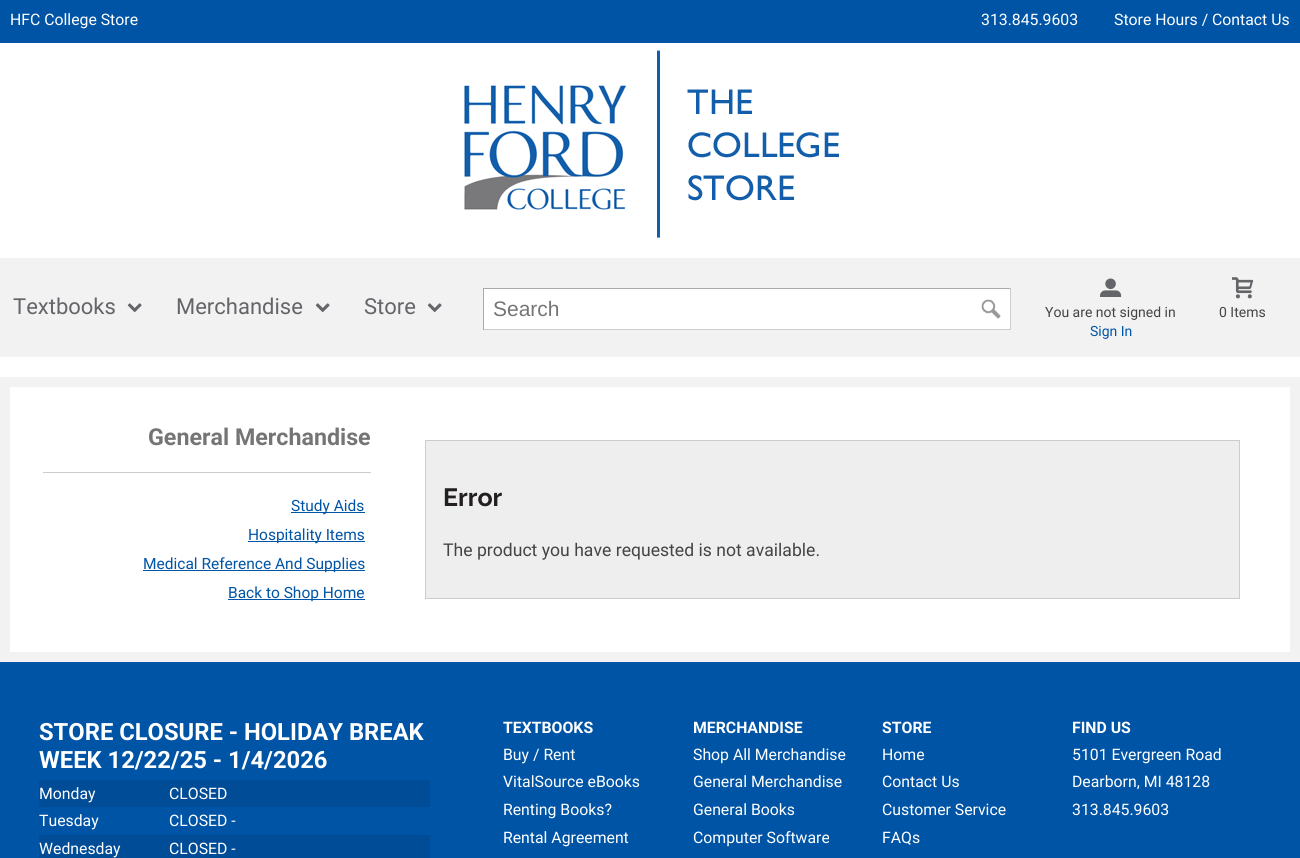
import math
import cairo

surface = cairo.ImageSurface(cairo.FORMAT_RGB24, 1300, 858)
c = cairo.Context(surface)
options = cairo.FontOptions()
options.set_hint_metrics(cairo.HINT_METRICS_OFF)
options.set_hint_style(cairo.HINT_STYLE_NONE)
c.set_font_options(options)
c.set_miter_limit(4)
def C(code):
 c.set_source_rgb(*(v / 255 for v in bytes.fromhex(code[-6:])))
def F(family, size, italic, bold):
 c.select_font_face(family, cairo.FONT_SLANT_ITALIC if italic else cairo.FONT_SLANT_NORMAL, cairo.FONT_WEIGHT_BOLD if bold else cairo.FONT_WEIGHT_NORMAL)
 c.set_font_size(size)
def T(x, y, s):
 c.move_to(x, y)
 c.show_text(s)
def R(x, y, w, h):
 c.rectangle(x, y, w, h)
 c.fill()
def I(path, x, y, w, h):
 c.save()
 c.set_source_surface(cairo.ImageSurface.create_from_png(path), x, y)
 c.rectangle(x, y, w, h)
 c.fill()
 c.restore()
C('ffffff')
c.paint()
C('0054a6')
R(0,0,1300,43)
F('Roboto',15.8,0,0)
C('ffffff')
T(10,25,'HFC College Store')
T(981,25,'313.845.9603')
T(1114,25,'Store Hours / Contact Us')
I('1.png',464,50,375,188)
C('f2f2f2')
R(0,258,1300,99)
F('Roboto',22,0,0)
C('646569')
T(13,314,'Textbooks')
I('2.png',127,303,15,10)
T(176,314,'Merchandise')
I('2.png',315,303,15,10)
T(364,314,'Store')
I('2.png',427,303,15,10)
C('ffffff')
R(484,289,526,40)
C('aaaaaa')
R(483,288,528,1)
C('cccccc')
R(1010,288,1,42)
R(483,329,528,1)
C('aaaaaa')
R(483,288,1,42)
F('Liberation Sans',21,0,0)
C('757575')
T(493,316,'Search')
I('3.png',981,299,20,20)
I('4.png',1100,278,22,19)
F('Roboto',14,0,0)
C('444444')
T(1045,317,'You are not signed in')
C('0054a6')
T(1090,336,'Sign In')
I('5.png',1232,277,22,22)
C('444444')
T(1219,317,'0 Items')
c.rectangle(5,382,1290,275)
C('f2f2f2')
c.set_line_width(10)
c.stroke()
F('Roboto',23.25,0,1)
C('757575')
T(148,445,'General Merchandise')
C('cccccc')
R(43,472,328,1)
C('0054a6')
R(291,512,74,1)
F('Roboto',15.5,0,0)
T(291,511,'Study Aids')
R(248,541,117,1)
T(248,540,'Hospitality Items')
R(143,570,222,1)
T(143,569,'Medical Reference And Supplies')
R(228,599,137,1)
T(228,598,'Back to Shop Home')
C('eeeeee')
c.rectangle(425.5,440.5,814,158)
c.fill_preserve()
C('cccccc')
c.set_line_width(1)
c.stroke()
F('Raleway',25,0,1)
C('231f20')
T(443,506,'Error')
F('Roboto',17.6,0,0)
C('444444')
T(443,556,'The product you have requested is not available.')
C('0054a6')
R(0,662,1300,196)
F('Roboto',23.75,0,1)
C('ffffff')
T(39,740,'STORE CLOSURE - HOLIDAY BREAK')
T(39,768,'WEEK 12/22/25 - 1/4/2026')
C('004c97')
R(39,780,391,27)
F('Roboto',15.8,0,0)
C('ffffff')
T(39,799,'Monday')
T(169,799,'CLOSED')
T(39,826,'Tuesday')
T(169,826,'CLOSED -')
C('004c97')
R(39,835,391,23)
C('ffffff')
T(39,854,'Wednesday')
T(169,854,'CLOSED -')
F('Roboto',15.8,0,1)
T(503,733,'TEXTBOOKS')
F('Roboto',15.8,0,0)
T(503,760,'Buy / Rent')
T(503,787,'VitalSource eBooks')
T(503,815,'Renting Books?')
T(503,843,'Rental Agreement')
F('Roboto',15.8,0,1)
T(693,733,'MERCHANDISE')
F('Roboto',15.8,0,0)
T(693,760,'Shop All Merchandise')
T(693,787,'General Merchandise')
T(693,815,'General Books')
T(693,843,'Computer Software')
F('Roboto',15.8,0,1)
T(882,733,'STORE')
F('Roboto',15.8,0,0)
T(882,760,'Home')
T(882,787,'Contact Us')
T(882,815,'Customer Service')
T(882,843,'FAQs')
F('Roboto',15.8,0,1)
T(1072,733,'FIND US')
F('Roboto',15.8,0,0)
T(1072,760,'5101 Evergreen Road')
T(1072,787,'Dearborn, MI 48128')
T(1072,815,'313.845.9603')
surface.write_to_png('o.png')
